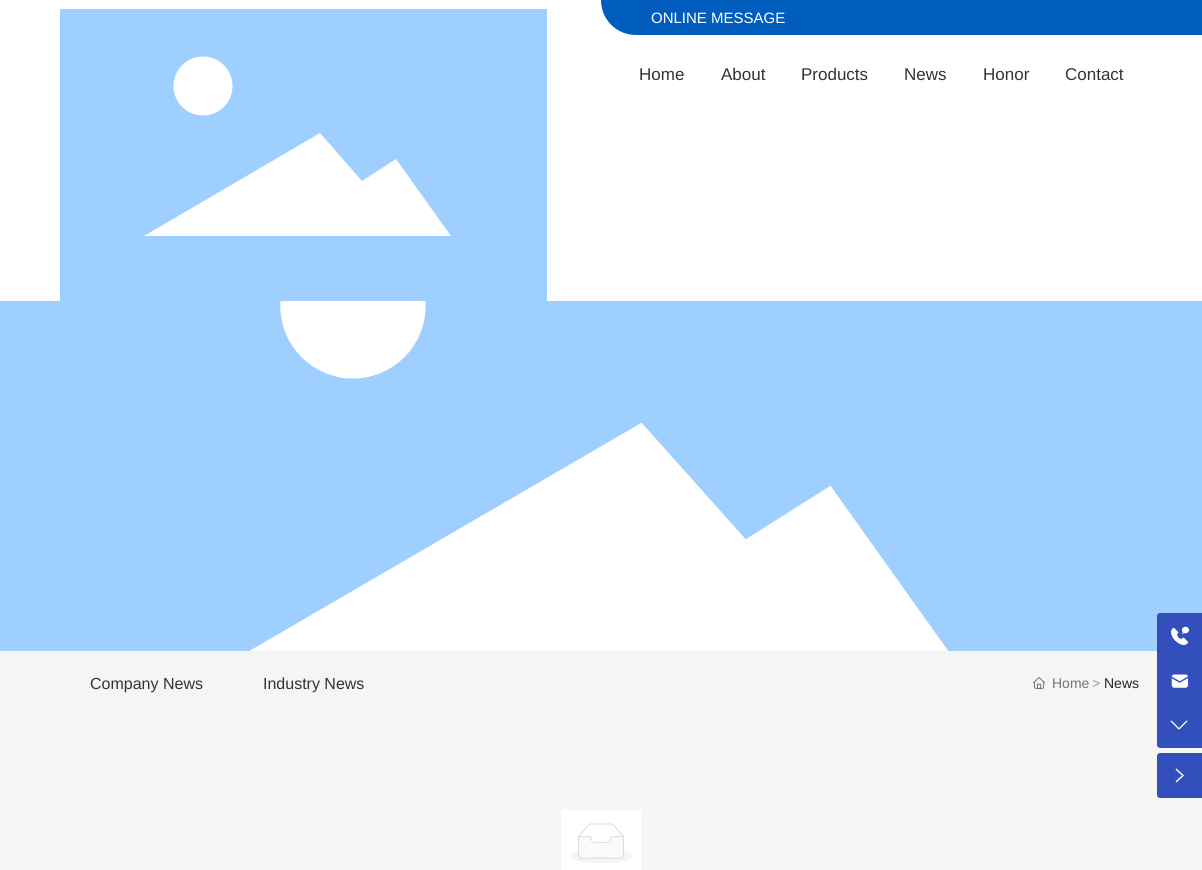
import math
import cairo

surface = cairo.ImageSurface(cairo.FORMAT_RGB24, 1202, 870)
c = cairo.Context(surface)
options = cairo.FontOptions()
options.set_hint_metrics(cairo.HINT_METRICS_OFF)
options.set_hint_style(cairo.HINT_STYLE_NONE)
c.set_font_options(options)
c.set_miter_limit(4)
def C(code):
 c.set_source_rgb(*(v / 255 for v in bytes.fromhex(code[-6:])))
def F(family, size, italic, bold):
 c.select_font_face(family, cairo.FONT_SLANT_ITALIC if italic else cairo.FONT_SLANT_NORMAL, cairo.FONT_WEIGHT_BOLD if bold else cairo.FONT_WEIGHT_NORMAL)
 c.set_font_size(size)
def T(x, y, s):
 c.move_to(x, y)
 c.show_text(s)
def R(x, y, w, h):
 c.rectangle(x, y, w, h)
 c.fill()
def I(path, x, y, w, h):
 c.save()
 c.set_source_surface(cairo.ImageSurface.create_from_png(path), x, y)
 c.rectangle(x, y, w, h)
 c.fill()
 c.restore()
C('ffffff')
c.paint()
C('005dbd')
c.new_path()
c.move_to(601,0)
c.line_to(1202,0)
c.line_to(1202,35)
c.line_to(636,35)
c.curve_to(616.5,35,601,19.5,601,0)
c.close_path()
c.fill()
F('Liberation Sans',15,0,0)
C('ffffff')
T(651,23,'ONLINE MESSAGE')
C('9fcfff')
R(60,9,487,292)
C('ffffff')
c.new_path()
c.arc(203,86,29.5,0,2 * math.pi)
c.fill()
c.new_path()
c.move_to(144,236)
c.line_to(320,133)
c.line_to(362,181)
c.line_to(396,159)
c.line_to(451,236)
c.close_path()
c.fill()
F('Liberation Sans',17,0,0)
C('333333')
T(639,80,'Home')
T(721,80,'About')
T(801,80,'Products')
T(904,80,'News')
T(983,80,'Honor')
T(1065,80,'Contact')
I('1.png',0,301,1202,350)
C('f5f5f5')
R(0,651,1157,65)
F('Liberation Sans',16,0,0)
C('333333')
T(90,689,'Company News')
T(263,689,'Industry News')
I('2.png',1033,677,12,12)
F('Liberation Sans',14,0,0)
C('6c757d')
T(1052,688,'Home')
C('999999')
T(1092,688,'>')
C('212529')
T(1104,688,'News')
C('f6f6f6')
R(0,716,1202,154)
C('324fbb')
c.new_path()
c.move_to(1160,613)
c.line_to(1202,613)
c.line_to(1202,748)
c.line_to(1160,748)
c.curve_to(1158.5,748,1157,746.5,1157,745)
c.line_to(1157,616)
c.curve_to(1157,614.5,1158.5,613,1160,613)
c.close_path()
c.fill()
I('3.png',1171,626,19,19)
I('4.png',1171,674,18,14)
I('5.png',1170,720,18,10)
c.new_path()
c.move_to(1160,753)
c.line_to(1202,753)
c.line_to(1202,798)
c.line_to(1160,798)
c.curve_to(1158.5,798,1157,796.5,1157,795)
c.line_to(1157,756)
c.curve_to(1157,754.5,1158.5,753,1160,753)
c.close_path()
c.fill()
I('6.png',1175,768,9,15)
I('7.png',561,810,80,60)
surface.write_to_png('o.png')
